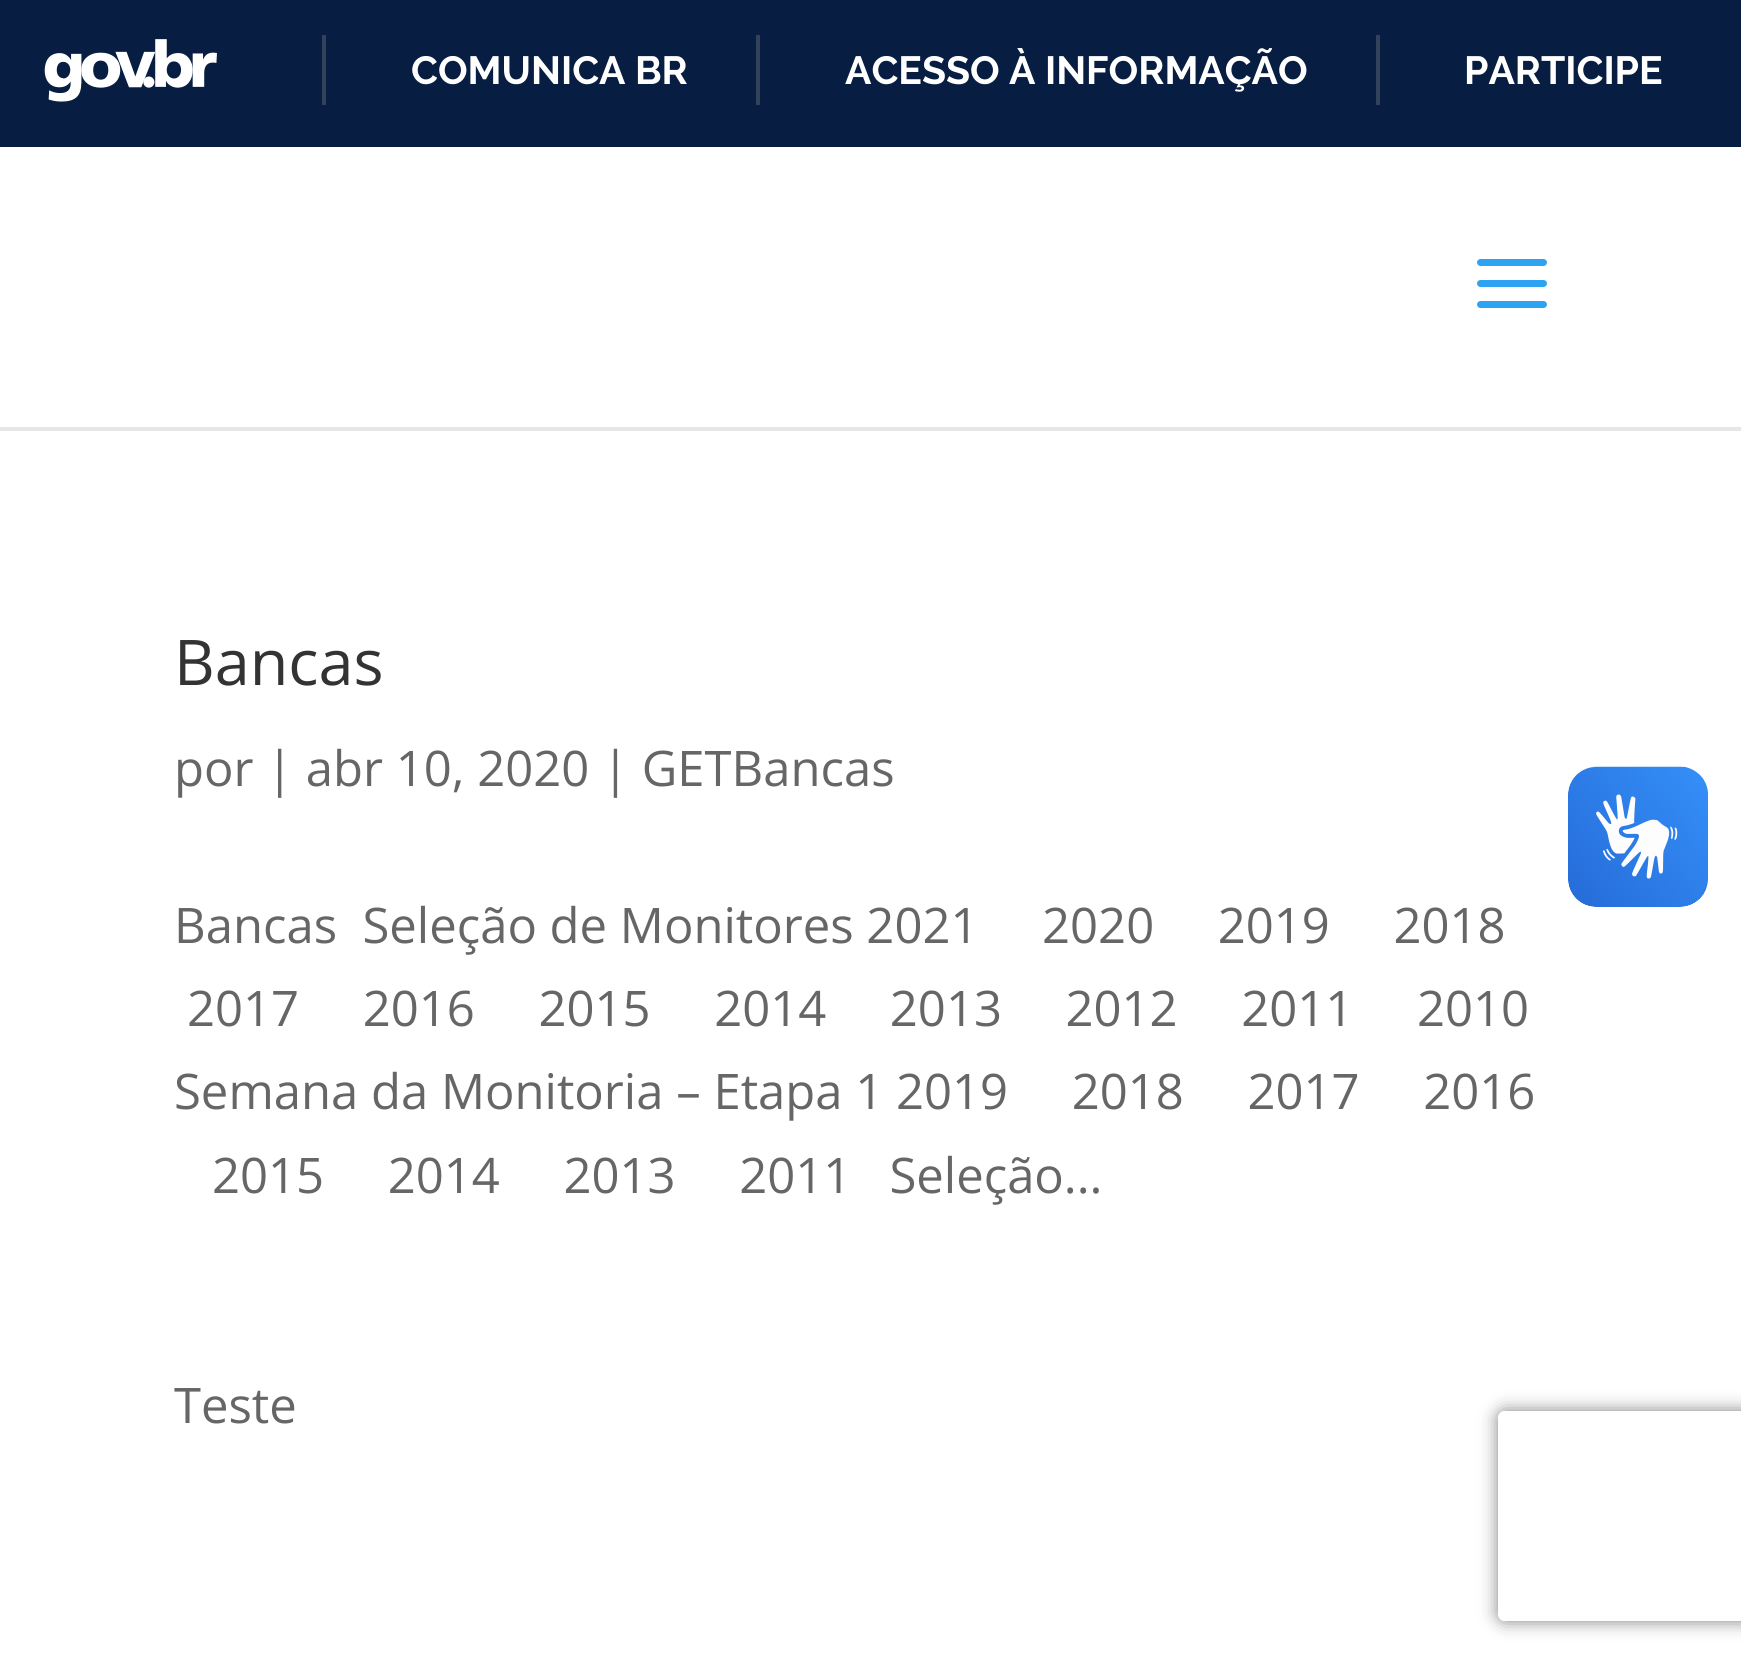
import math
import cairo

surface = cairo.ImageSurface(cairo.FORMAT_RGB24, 1741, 1667)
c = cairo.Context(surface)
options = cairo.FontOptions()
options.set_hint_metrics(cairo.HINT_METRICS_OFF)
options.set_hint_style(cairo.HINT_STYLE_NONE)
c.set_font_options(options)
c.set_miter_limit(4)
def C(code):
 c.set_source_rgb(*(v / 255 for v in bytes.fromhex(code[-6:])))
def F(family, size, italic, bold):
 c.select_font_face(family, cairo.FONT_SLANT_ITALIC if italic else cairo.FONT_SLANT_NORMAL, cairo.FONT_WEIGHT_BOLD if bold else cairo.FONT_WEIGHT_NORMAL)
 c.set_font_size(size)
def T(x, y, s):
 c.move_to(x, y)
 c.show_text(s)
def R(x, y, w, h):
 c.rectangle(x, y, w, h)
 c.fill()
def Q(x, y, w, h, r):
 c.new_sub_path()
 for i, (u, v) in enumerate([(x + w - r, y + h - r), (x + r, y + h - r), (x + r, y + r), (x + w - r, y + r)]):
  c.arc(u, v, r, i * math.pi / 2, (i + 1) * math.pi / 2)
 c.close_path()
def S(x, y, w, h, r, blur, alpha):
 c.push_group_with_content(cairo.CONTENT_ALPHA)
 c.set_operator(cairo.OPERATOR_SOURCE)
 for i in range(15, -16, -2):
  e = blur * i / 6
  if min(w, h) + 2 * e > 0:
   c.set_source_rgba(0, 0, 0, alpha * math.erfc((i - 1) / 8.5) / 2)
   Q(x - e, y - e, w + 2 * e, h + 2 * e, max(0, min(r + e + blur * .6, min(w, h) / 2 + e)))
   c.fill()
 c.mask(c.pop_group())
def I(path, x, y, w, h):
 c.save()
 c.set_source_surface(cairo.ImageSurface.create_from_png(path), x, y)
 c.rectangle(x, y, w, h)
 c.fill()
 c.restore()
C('ffffff')
c.paint()
C('071d41')
R(0,0,1741,147)
I('1.png',44,39,173,63)
C('32425b')
R(322,35,4,70)
F('Raleway',39.25,0,1)
C('ffffff')
T(411,84,'COMUNICA BR')
C('32425b')
R(756,35,4,70)
C('ffffff')
T(845,84,'ACESSO À INFORMAÇÃO')
C('32425b')
R(1376,35,4,70)
C('ffffff')
T(1464,84,'PARTICIPE')
C('e6e6e6')
R(0,427,1741,4)
I('2.png',1477,259,70,49)
F('Open Sans',63,0,0)
C('333333')
T(174,685,'Bancas')
F('Open Sans',49,0,0)
C('666666')
T(174,786,'por | abr 10, 2020 | GETBancas')
T(174,943,'Bancas  Seleção de Monitores 2021     2020     2019     2018')
T(187,1026,'2017     2016     2015     2014     2013     2012     2011     2010')
T(174,1109,'Semana da Monitoria – Etapa 1 2019     2018     2017     2016')
T(212,1193,'2015     2014     2013     2011   Seleção...')
T(174,1423,'Teste')
I('3.png',1568,766,140,141)
I('4.png',1568,767,140,140)
c.save()
c.set_fill_rule(cairo.FILL_RULE_EVEN_ODD)
c.new_path()
c.move_to(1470,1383)
c.line_to(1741,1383)
c.line_to(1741,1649)
c.line_to(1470,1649)
c.close_path()
c.move_to(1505,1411)
c.line_to(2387,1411)
c.curve_to(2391,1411,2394,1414,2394,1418)
c.line_to(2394,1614)
c.curve_to(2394,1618,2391,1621,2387,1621)
c.line_to(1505,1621)
c.curve_to(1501,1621,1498,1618,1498,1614)
c.line_to(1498,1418)
c.curve_to(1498,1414,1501,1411,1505,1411)
c.close_path()
c.clip()
C('808080')
S(1498,1411,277,210,7,9,1)
c.restore()
surface.write_to_png('o.png')
